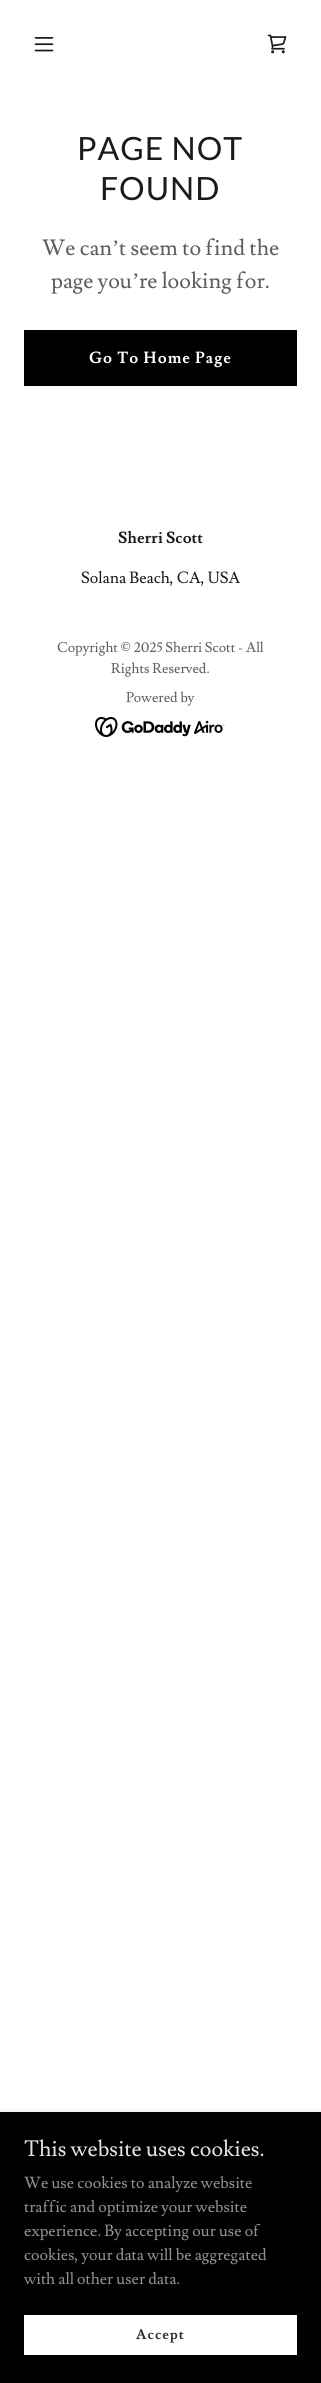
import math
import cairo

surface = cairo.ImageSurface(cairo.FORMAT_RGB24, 321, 2383)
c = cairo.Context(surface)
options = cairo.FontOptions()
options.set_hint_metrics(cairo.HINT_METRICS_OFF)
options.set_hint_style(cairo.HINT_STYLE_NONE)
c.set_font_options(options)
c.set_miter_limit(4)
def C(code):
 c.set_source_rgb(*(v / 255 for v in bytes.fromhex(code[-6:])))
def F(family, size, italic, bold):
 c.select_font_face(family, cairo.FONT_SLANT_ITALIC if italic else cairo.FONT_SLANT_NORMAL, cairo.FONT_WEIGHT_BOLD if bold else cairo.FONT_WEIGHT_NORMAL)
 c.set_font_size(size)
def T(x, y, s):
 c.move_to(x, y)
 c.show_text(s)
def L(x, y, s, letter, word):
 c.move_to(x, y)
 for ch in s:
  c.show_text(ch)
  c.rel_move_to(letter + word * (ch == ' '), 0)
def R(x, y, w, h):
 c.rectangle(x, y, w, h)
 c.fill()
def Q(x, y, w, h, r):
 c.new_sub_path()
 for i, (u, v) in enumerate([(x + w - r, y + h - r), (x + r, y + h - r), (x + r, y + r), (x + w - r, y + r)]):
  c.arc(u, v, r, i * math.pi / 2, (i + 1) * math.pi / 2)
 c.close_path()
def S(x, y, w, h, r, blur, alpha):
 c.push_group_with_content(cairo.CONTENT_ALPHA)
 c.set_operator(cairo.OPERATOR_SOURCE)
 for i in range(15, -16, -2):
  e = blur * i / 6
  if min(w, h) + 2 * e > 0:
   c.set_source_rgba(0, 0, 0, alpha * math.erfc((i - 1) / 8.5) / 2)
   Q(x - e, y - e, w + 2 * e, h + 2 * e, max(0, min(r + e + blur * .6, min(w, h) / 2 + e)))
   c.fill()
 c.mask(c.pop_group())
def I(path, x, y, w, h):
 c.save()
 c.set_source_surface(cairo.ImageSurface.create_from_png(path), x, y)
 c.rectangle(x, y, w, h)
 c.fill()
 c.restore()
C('ffffff')
c.paint()
I('1.png',34,37,20,15)
I('2.png',267,34,20,20)
F('Lato',32,0,0)
C('1b1b1b')
L(77,160,'PAGE NOT',1,0)
L(100,200,'FOUND',1,0)
F('Lusitana',22,0,0)
C('5e5e5e')
T(42,255,'We can')
F('Liberation Serif',22,0,0)
T(112,255,'’')
F('Lusitana',22,0,0)
T(119,255,'t seem to find the')
F('Liberation Serif',22,0,0)
T(132,288,'’')
F('Lusitana',22,0,0)
T(139,288,'re looking for.')
T(51,288,'page you')
C('000000')
R(24,330,273,56)
F('Lusitana',16,0,1)
C('ffffff')
L(89,363,'Go To Home Page',1,0)
C('1b1b1b')
T(118,543,'Sherri Scott')
F('Lusitana',16,0,0)
T(81,583,'Solana Beach, CA, USA')
F('Lusitana',14,0,0)
C('5e5e5e')
T(57,652,'Copyright © 2025 Sherri Scott - All')
T(111,673,'Rights Reserved.')
T(126,702,'Powered by')
I('3.png',95,717,130,20)
C('000000')
S(0,2114,321,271,0,3,.3)
C('000000')
R(0,2112,321,271)
F('Lusitana',22,0,0)
C('e2e2e2')
T(24,2156,'This website uses cookies.')
F('Lusitana',16,0,0)
C('919191')
T(24,2188,'We use cookies to analyze website')
T(24,2212,'traffic and optimize your website')
T(24,2236,'experience. By accepting our use of')
T(24,2260,'cookies, your data will be aggregated')
T(24,2284,'with all other user data.')
C('ffffff')
R(24,2315,273,40)
F('Lusitana',14,0,1)
C('303030')
L(136,2339,'Accept',1,0)
surface.write_to_png('o.png')
